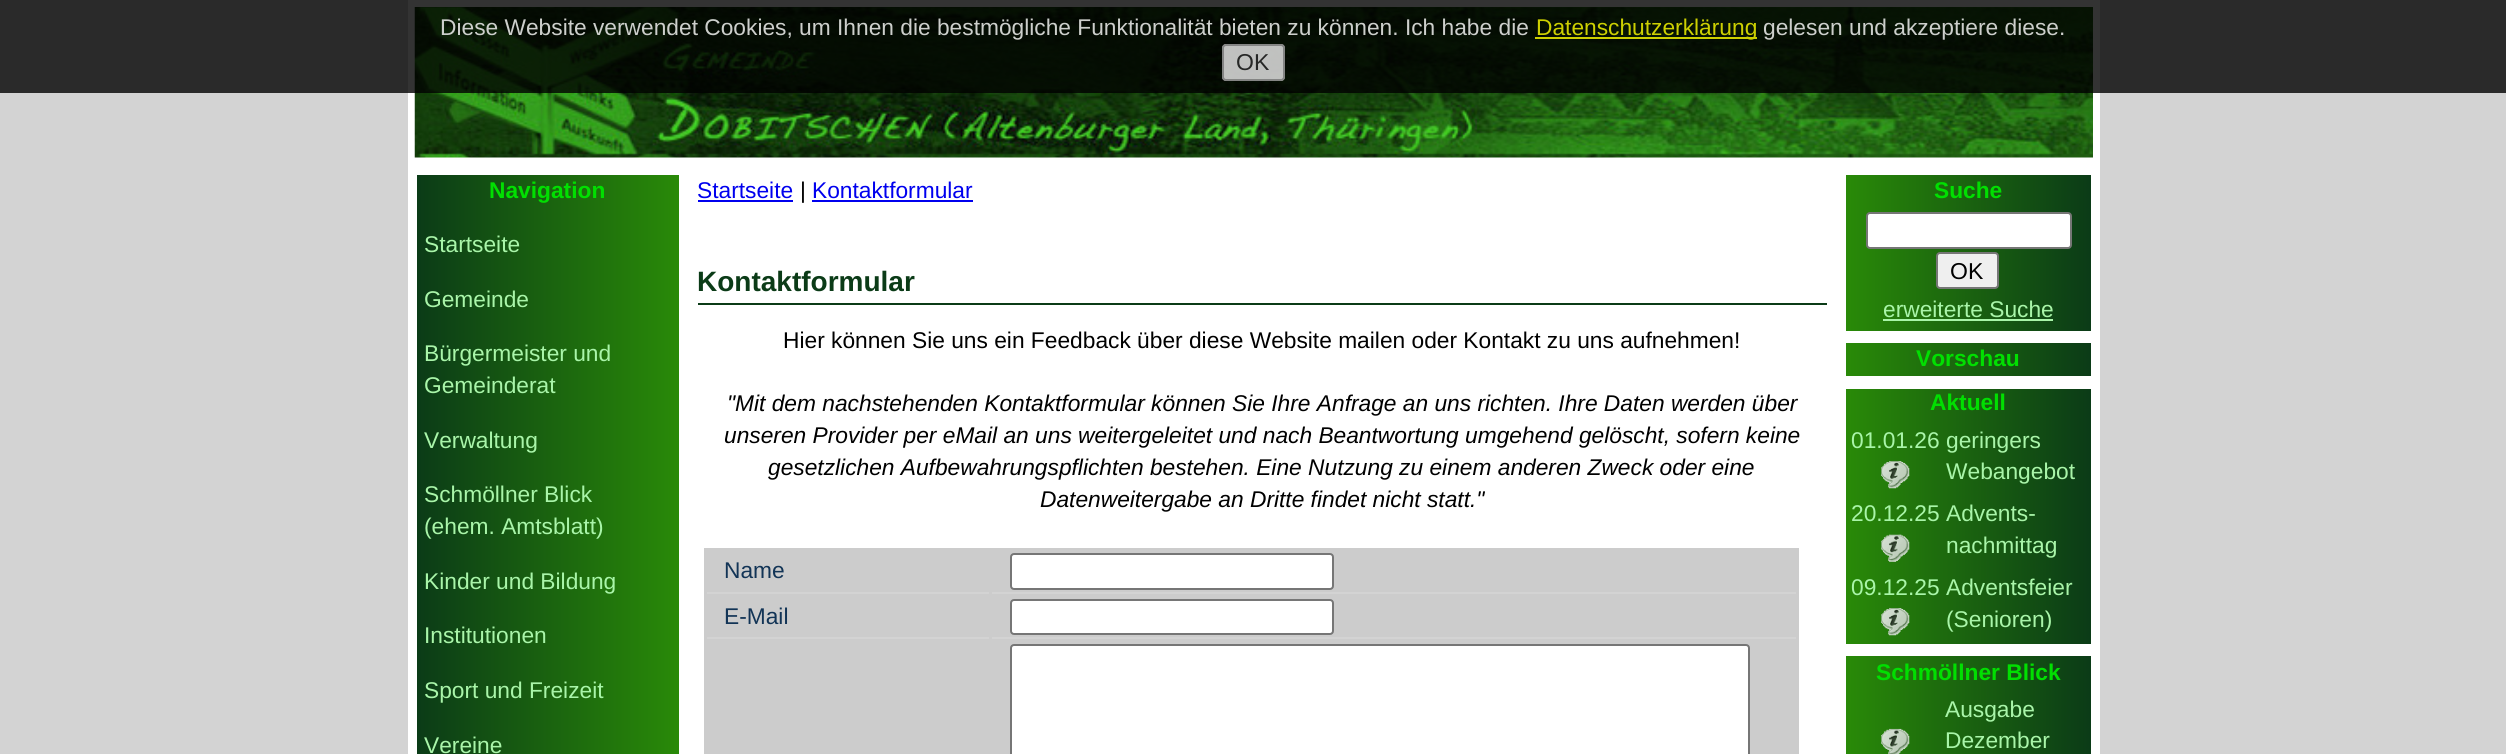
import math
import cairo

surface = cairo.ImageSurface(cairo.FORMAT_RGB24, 2506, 754)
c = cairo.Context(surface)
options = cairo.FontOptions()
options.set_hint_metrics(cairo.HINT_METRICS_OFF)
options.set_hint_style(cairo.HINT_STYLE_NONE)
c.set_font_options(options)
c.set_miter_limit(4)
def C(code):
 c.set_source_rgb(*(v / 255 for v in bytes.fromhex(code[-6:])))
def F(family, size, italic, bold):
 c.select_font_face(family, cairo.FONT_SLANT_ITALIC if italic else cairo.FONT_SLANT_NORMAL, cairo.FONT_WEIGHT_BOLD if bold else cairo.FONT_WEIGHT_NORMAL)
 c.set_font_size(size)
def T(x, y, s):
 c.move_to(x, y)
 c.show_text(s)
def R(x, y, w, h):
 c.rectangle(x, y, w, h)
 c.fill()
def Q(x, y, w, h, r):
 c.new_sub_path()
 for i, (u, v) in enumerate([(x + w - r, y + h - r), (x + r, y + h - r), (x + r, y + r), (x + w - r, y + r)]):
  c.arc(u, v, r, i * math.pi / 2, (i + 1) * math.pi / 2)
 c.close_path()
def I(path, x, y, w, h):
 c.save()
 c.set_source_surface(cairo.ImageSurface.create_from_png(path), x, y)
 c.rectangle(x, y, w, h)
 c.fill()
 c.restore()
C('d3d3d3')
c.paint()
C('ffffff')
R(408,0,1692,754)
I('1.png',414,7,1679,151)
c.set_source_rgba(0,0,0,0.8)
R(0,0,2506,93)
F('Liberation Sans',22.75,0,0)
C('cdcfcc')
T(440,35,'Diese Website verwendet Cookies, um Ihnen die bestmögliche Funktionalität bieten zu können. Ich habe die')
c.set_source_rgba(1,1,0,0.8)
R(1535,37,222,2)
C('cdd001')
T(1536,35,'Datenschutzerklärung')
C('cdcfcc')
T(1763,35,'gelesen und akzeptiere diese.')
c.set_source_rgba(0.937,0.937,0.937,0.8)
Q(1222,44,63,37,4)
c.fill()
Q(1223,45,61,35,3)
c.set_source_rgba(0.463,0.463,0.463,0.8)
c.stroke()
F('Liberation Sans',23,0,0)
C('262726')
T(1236,70,'OK')
gradient = cairo.LinearGradient(416,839,679,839)
gradient.add_color_stop_rgba(0,0.043,0.231,0.09,1)
gradient.add_color_stop_rgba(1,0.161,0.541,0.031,1)
c.set_source(gradient)
R(417,175,262,579)
F('Liberation Sans',22.75,0,1)
C('01df01')
T(489,198,'Navigation')
F('Liberation Sans',22.75,0,0)
C('a9f5a9')
T(424,252,'Startseite')
T(424,307,'Gemeinde')
T(424,361,'Bürgermeister und')
T(424,393,'Gemeinderat')
T(424,448,'Verwaltung')
T(424,502,'Schmöllner Blick')
T(424,534,'(ehem. Amtsblatt)')
T(424,589,'Kinder und Bildung')
T(424,643,'Institutionen')
T(424,698,'Sport und Freizeit')
T(424,753,'Vereine')
C('0000ee')
T(697,198,'Startseite')
R(698,200,95,2)
C('000000')
T(800,198,'|')
C('0000ee')
T(812,198,'Kontaktformular')
R(812,200,161,2)
C('0b3b17')
R(698,303,1129,2)
F('Liberation Sans',28,0,1)
T(697,291,'Kontaktformular')
F('Liberation Sans',22.75,0,0)
C('000000')
T(783,348,'Hier können Sie uns ein Feedback über diese Website mailen oder Kontakt zu uns aufnehmen!')
F('Liberation Sans',22.75,1,0)
T(727,411,'"Mit dem nachstehenden Kontaktformular können Sie Ihre Anfrage an uns richten. Ihre Daten werden über')
T(724,443,'unseren Provider per eMail an uns weitergeleitet und nach Beantwortung umgehend gelöscht, sofern keine')
T(768,475,'gesetzlichen Aufbewahrungspflichten bestehen. Eine Nutzung zu einem anderen Zweck oder eine')
T(1040,507,'Datenweitergabe an Dritte findet nicht statt."')
C('cccccc')
R(704,548,1095,206)
C('d3d3d3')
R(707,592,282,2)
F('Liberation Sans',22.75,0,0)
C('123456')
T(724,578,'Name')
C('d3d3d3')
R(992,592,804,2)
C('ffffff')
Q(1011,554,322,35,3)
c.fill_preserve()
C('767676')
c.stroke()
C('d3d3d3')
R(707,637,282,2)
C('123456')
T(724,624,'E-Mail')
C('d3d3d3')
R(992,637,804,2)
C('ffffff')
Q(1011,600,322,34,3)
c.fill_preserve()
C('767676')
c.stroke()
C('ffffff')
Q(1011,645,738,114,3)
c.fill_preserve()
C('767676')
c.stroke()
gradient = cairo.LinearGradient(2091,253,1846,253)
gradient.add_color_stop_rgba(0,0.043,0.231,0.09,1)
gradient.add_color_stop_rgba(1,0.161,0.541,0.031,1)
c.set_source(gradient)
R(1846,175,245,156)
F('Liberation Sans',22.75,0,1)
C('01df01')
T(1934,198,'Suche')
C('ffffff')
Q(1867,213,204,35,3)
c.fill_preserve()
C('767676')
c.stroke()
C('efefef')
Q(1937,253,61,35,3)
c.fill_preserve()
C('767676')
c.stroke()
F('Liberation Sans',23,0,0)
C('000000')
T(1950,279,'OK')
F('Liberation Sans',22.75,0,0)
C('a9f5a9')
T(1883,317,'erweiterte Suche')
R(1883,319,170,2)
gradient = cairo.LinearGradient(2091,360,1846,360)
gradient.add_color_stop_rgba(0,0.043,0.231,0.09,1)
gradient.add_color_stop_rgba(1,0.161,0.541,0.031,1)
c.set_source(gradient)
R(1846,343,245,33)
F('Liberation Sans',22.75,0,1)
C('01df01')
T(1916,366,'Vorschau')
gradient = cairo.LinearGradient(2091,516,1846,516)
gradient.add_color_stop_rgba(0,0.043,0.231,0.09,1)
gradient.add_color_stop_rgba(1,0.161,0.541,0.031,1)
c.set_source(gradient)
R(1846,389,245,255)
C('01df01')
T(1930,410,'Aktuell')
F('Liberation Sans',22.75,0,0)
C('a9f5a9')
T(1851,448,'01.01.26')
I('2.png',1881,461,29,28)
T(1946,448,'geringers')
T(1946,479,'Webangebot')
T(1851,521,'20.12.25')
I('3.png',1881,534,29,28)
T(1946,521,'Advents-')
T(1946,553,'nachmittag')
T(1851,595,'09.12.25')
I('2.png',1881,608,29,28)
T(1946,595,'Adventsfeier')
T(1946,627,'(Senioren)')
gradient = cairo.LinearGradient(2091,725,1846,725)
gradient.add_color_stop_rgba(0,0.043,0.231,0.09,1)
gradient.add_color_stop_rgba(1,0.161,0.541,0.031,1)
c.set_source(gradient)
R(1846,656,245,98)
F('Liberation Sans',22.75,0,1)
C('01df01')
T(1876,680,'Schmöllner Blick')
I('4.png',1881,728,29,26)
F('Liberation Sans',22.75,0,0)
C('a9f5a9')
T(1945,717,'Ausgabe')
T(1945,748,'Dezember')
surface.write_to_png('o.png')
